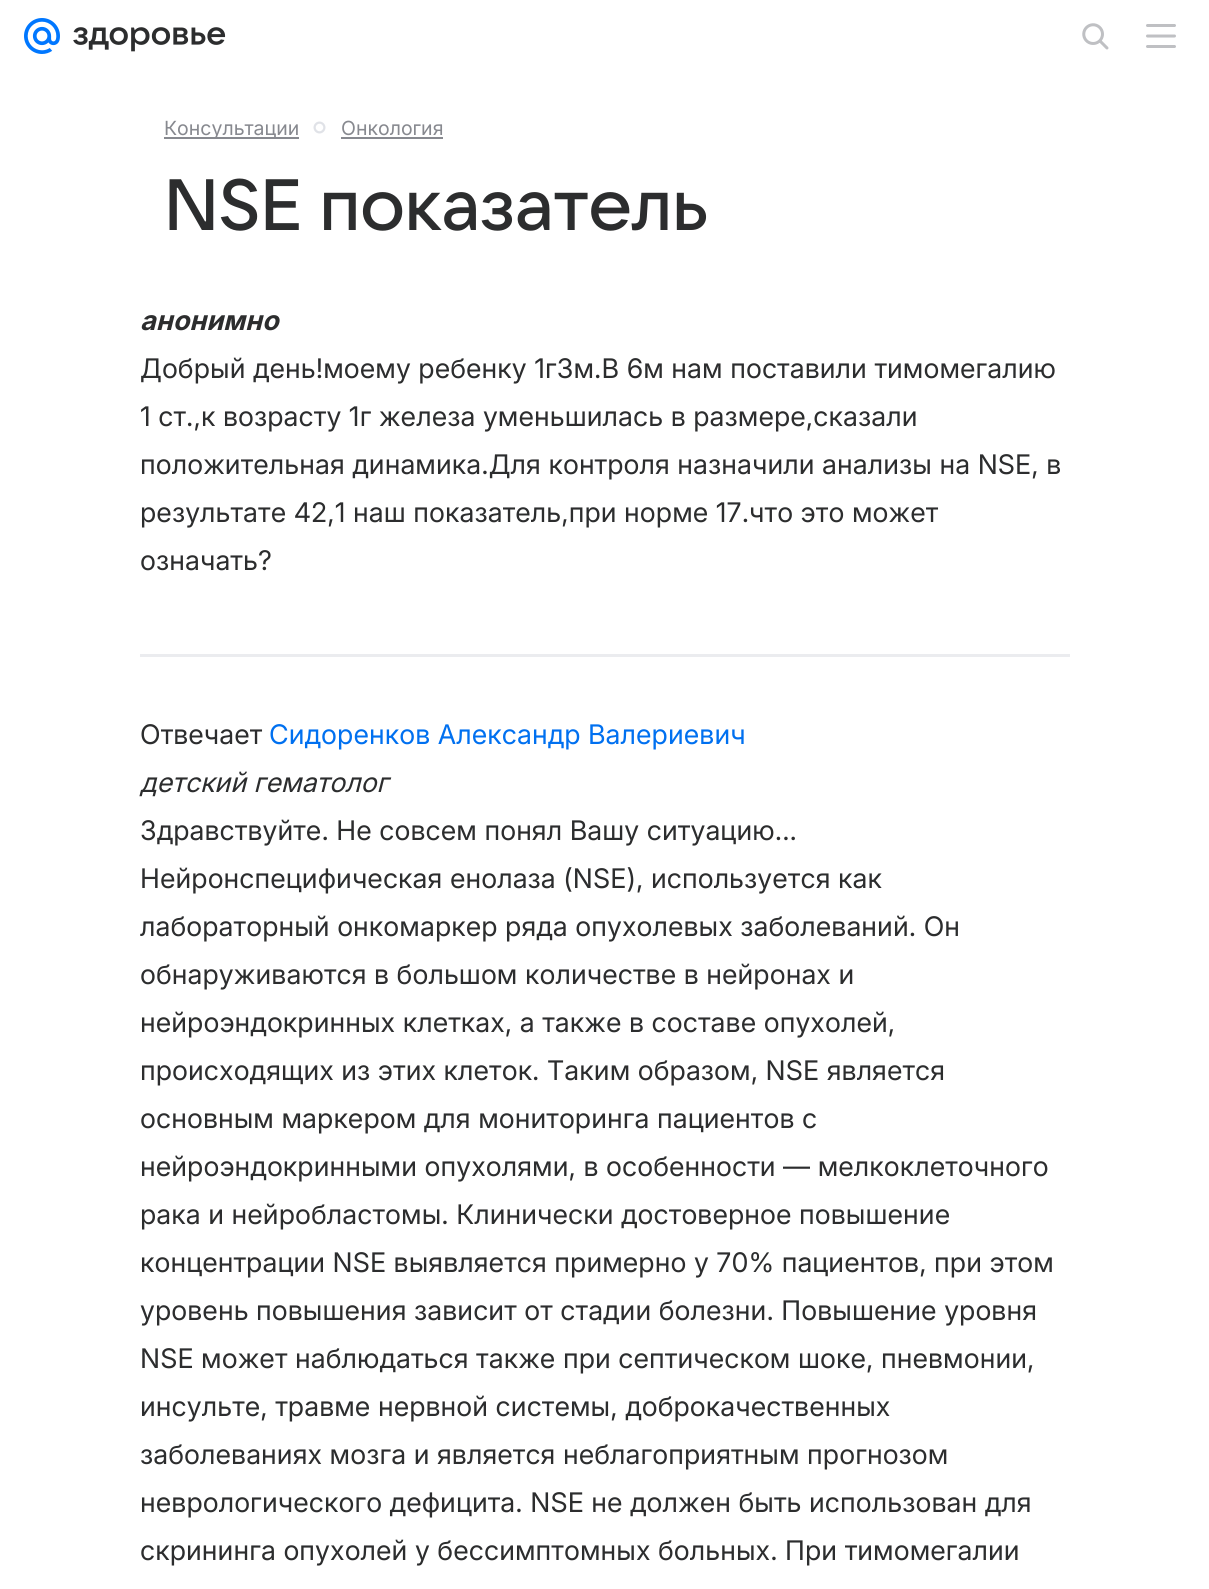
import math
import cairo

surface = cairo.ImageSurface(cairo.FORMAT_RGB24, 1209, 1589)
c = cairo.Context(surface)
options = cairo.FontOptions()
options.set_hint_metrics(cairo.HINT_METRICS_OFF)
options.set_hint_style(cairo.HINT_STYLE_NONE)
c.set_font_options(options)
c.set_miter_limit(4)
def C(code):
 c.set_source_rgb(*(v / 255 for v in bytes.fromhex(code[-6:])))
def F(family, size, italic, bold):
 c.select_font_face(family, cairo.FONT_SLANT_ITALIC if italic else cairo.FONT_SLANT_NORMAL, cairo.FONT_WEIGHT_BOLD if bold else cairo.FONT_WEIGHT_NORMAL)
 c.set_font_size(size)
def T(x, y, s):
 c.move_to(x, y)
 c.show_text(s)
def L(x, y, s, letter, word):
 c.move_to(x, y)
 for ch in s:
  c.show_text(ch)
  c.rel_move_to(letter + word * (ch == ' '), 0)
def R(x, y, w, h):
 c.rectangle(x, y, w, h)
 c.fill()
def I(path, x, y, w, h):
 c.save()
 c.set_source_surface(cairo.ImageSurface.create_from_png(path), x, y)
 c.rectangle(x, y, w, h)
 c.fill()
 c.restore()
C('ffffff')
c.paint()
I('1.png',24,18,36,36)
I('2.png',73,27,153,25)
I('3.png',1082,23,27,27)
I('4.png',1146,24,30,24)
C('87898f')
R(164,137,135,2)
F('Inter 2',19.5,0,0)
T(164,135,'Консультации')
I('5.png',313,121,13,13)
T(341,135,'Онкология')
R(341,137,102,2)
F('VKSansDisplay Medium',72,0,0)
C('2c2d2e')
L(164,230,'NSE показатель',-.4,0)
F('Inter',27,1,1)
L(140,330,'анонимно',.08,0)
F('Inter',27,0,0)
L(140,378,'Добрый день!моему ребенку 1г3м.В 6м нам поставили тимомегалию',.08,0)
L(140,426,'1 ст.,к возрасту 1г железа уменьшилась в размере,сказали',.08,0)
L(140,474,'положительная динамика.Для контроля назначили анализы на NSE, в',.08,0)
L(140,522,'результате 42,1 наш показатель,при норме 17.что это может',.08,0)
L(140,570,'означать?',.08,0)
C('ebecef')
R(140,654,930,3)
C('2c2d2e')
L(140,744,'Отвечает',.08,0)
C('0070f0')
L(269,744,'Сидоренков Александр Валериевич',.08,0)
F('Inter',27,1,0)
C('2c2d2e')
L(140,792,'детский гематолог',.08,0)
F('Inter',27,0,0)
L(140,840,'Здравствуйте. Не совсем понял Вашу ситуацию...',.08,0)
L(140,888,'Нейронспецифическая енолаза (NSE), используется как',.08,0)
L(140,936,'лабораторный онкомаркер ряда опухолевых заболеваний. Он',.08,0)
L(140,984,'обнаруживаются в большом количестве в нейронах и',.08,0)
L(140,1032,'нейроэндокринных клетках, а также в составе опухолей,',.08,0)
L(140,1080,'происходящих из этих клеток. Таким образом, NSE является',.08,0)
L(140,1128,'основным маркером для мониторинга пациентов с',.08,0)
L(140,1176,'нейроэндокринными опухолями, в особенности — мелкоклеточного',.08,0)
L(140,1224,'рака и нейробластомы. Клинически достоверное повышение',.08,0)
L(140,1272,'концентрации NSE выявляется примерно у 70% пациентов, при этом',.08,0)
L(140,1320,'уровень повышения зависит от стадии болезни. Повышение уровня',.08,0)
L(140,1368,'NSE может наблюдаться также при септическом шоке, пневмонии,',.08,0)
L(140,1416,'инсульте, травме нервной системы, доброкачественных',.08,0)
L(140,1464,'заболеваниях мозга и является неблагоприятным прогнозом',.08,0)
L(140,1512,'неврологического дефицита. NSE не должен быть использован для',.08,0)
L(140,1560,'скрининга опухолей у бессимптомных больных. При тимомегалии',.08,0)
surface.write_to_png('o.png')
